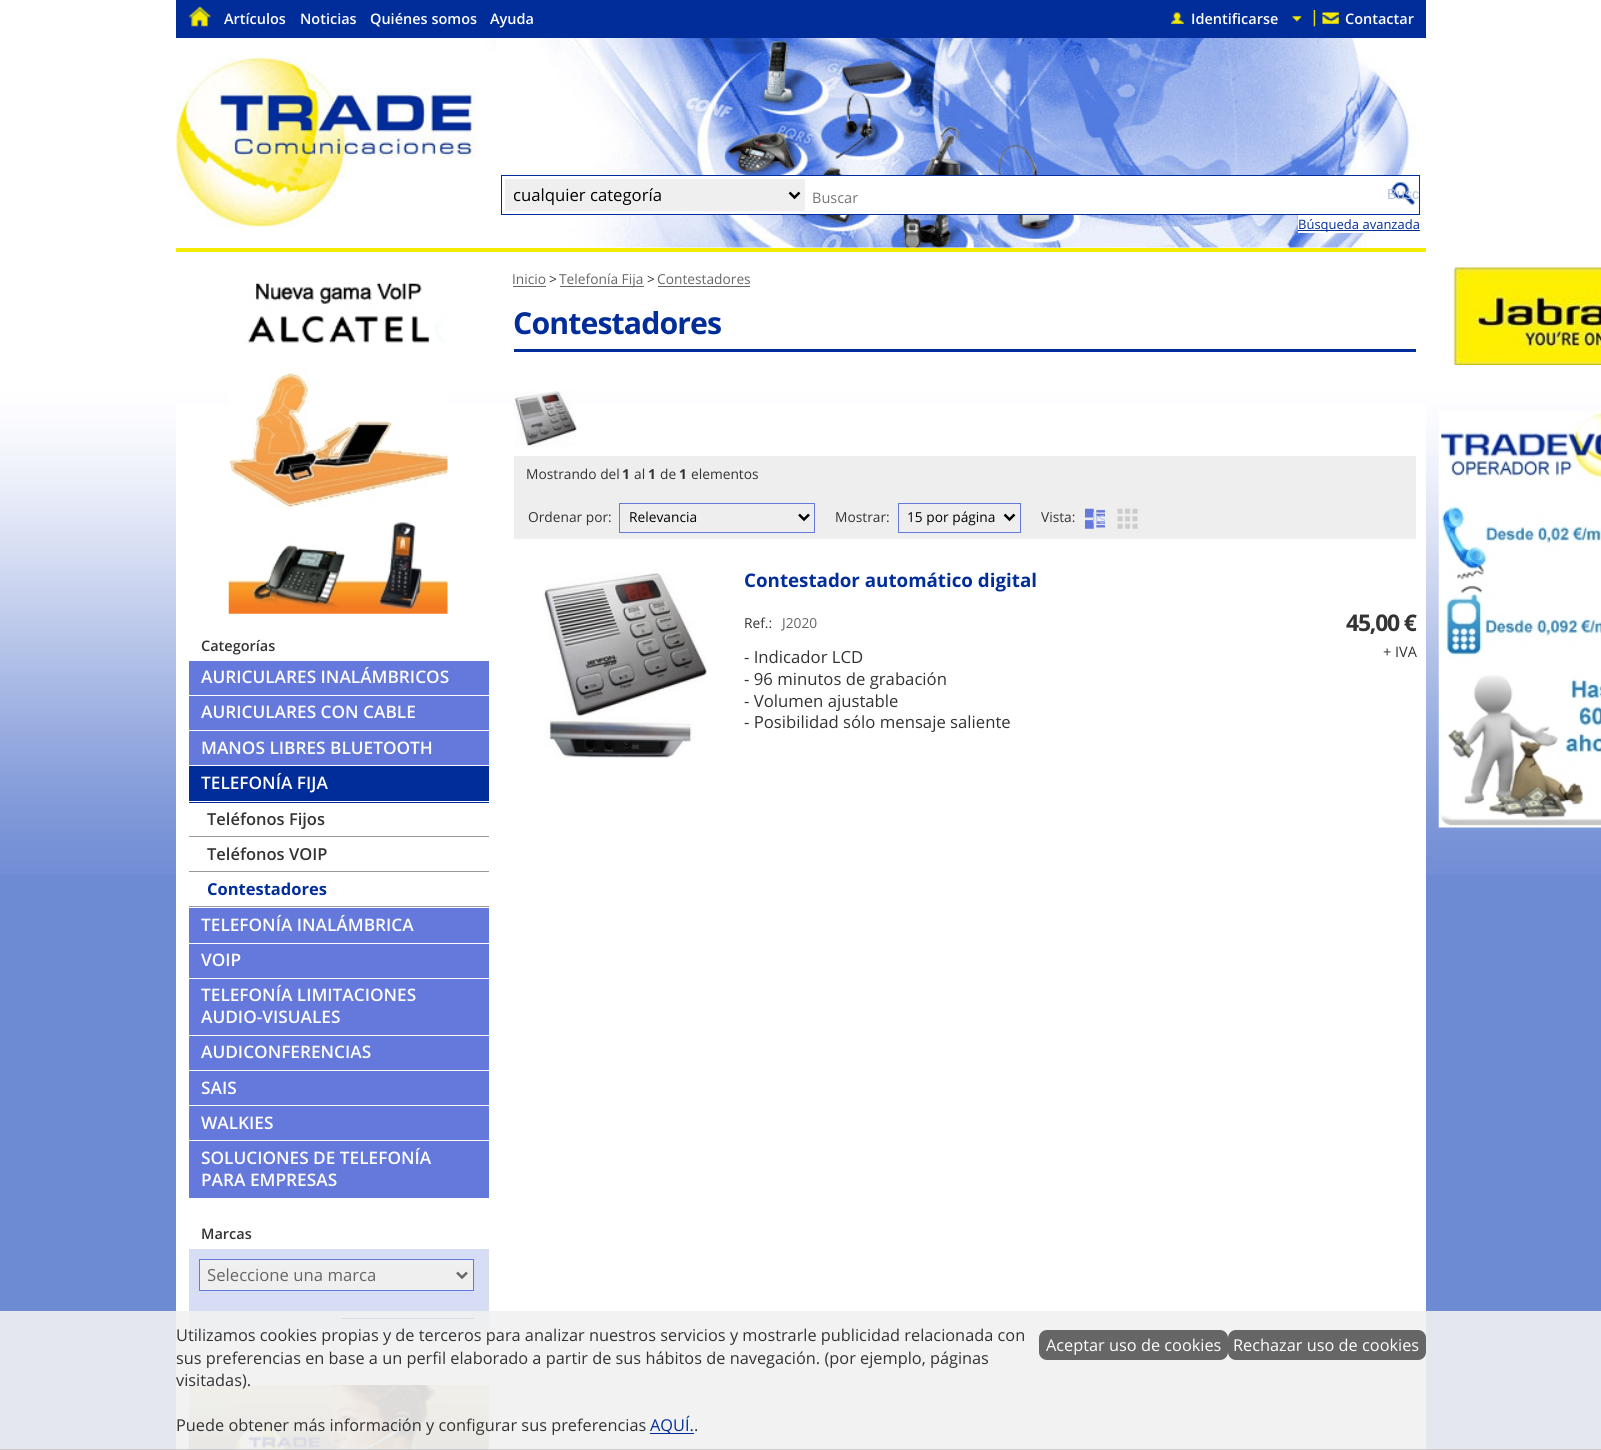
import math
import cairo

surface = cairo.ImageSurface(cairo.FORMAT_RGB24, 1601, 1450)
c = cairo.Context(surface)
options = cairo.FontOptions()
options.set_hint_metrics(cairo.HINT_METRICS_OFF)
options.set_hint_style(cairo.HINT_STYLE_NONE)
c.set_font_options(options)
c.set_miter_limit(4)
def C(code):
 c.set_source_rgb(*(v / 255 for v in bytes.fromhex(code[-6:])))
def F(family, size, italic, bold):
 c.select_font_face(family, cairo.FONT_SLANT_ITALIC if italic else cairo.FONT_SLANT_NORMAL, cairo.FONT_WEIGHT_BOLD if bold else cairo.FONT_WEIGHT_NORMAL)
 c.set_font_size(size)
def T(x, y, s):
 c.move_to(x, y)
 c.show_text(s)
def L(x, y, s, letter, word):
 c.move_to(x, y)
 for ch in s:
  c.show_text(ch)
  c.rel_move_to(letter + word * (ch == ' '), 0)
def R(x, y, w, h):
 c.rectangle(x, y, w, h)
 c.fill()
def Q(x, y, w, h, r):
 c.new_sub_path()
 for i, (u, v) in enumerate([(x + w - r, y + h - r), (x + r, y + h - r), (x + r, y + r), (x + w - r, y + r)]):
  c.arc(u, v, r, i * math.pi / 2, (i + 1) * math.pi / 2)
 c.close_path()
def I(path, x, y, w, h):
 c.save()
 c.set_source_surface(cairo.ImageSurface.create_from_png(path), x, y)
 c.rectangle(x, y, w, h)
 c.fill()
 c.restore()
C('6d8bd3')
c.paint()
I('1.png',0,0,1601,875)
C('ffffff')
R(176,405,1250,1044)
I('2.png',176,38,1240,210)
C('f6ea00')
R(176,248,1250,4)
C('012d9a')
R(176,0,1250,38)
I('3.png',188,6,24,21)
F('Open Sans SemiBold',14.5,0,0)
C('ffffff')
T(224,24,'Artículos')
T(300,24,'Noticias')
T(370,24,'Quiénes somos')
T(490,24,'Ayuda')
I('4.png',1171,12,13,12)
T(1191,24,'Identificarse')
I('5.png',1292,16,10,6)
I('6.png',1313,10,26,17)
T(1345,24,'Contactar')
R(588,176,818,38)
c.rectangle(501.5,175.5,918,39)
C('012d9a')
c.set_line_width(1)
c.stroke()
C('efefef')
R(505,179,300,32)
c.new_path()
c.move_to(789.5,192.5)
c.line_to(794.5,197.5)
c.line_to(799.5,192.5)
C('000000')
c.set_line_width(2.5)
c.stroke()
F('Open Sans',16.7,0,0)
T(513,201,'cualquier categoría')
F('Open Sans',14.5,0,0)
C('757575')
T(812,203,'Buscar')
I('7.png',1391,182,24,24)
F('Liberation Sans',14.5,0,0)
C('b4c1e1')
T(1387,199,'Busc')
C('ffffff')
R(1298,215,88,18)
C('012d9a')
R(1298,230,122,1)
F('Open Sans',13,0,0)
T(1298,229,'Búsqueda avanzada')
F('Open Sans',13.75,0,0)
C('666666')
T(512,284,'Inicio')
R(513,286,33,1)
C('333333')
T(549,284,'>')
C('666666')
R(560,286,84,1)
T(559,284,'Telefonía Fija')
C('333333')
T(647,284,'>')
C('666666')
T(657,284,'Contestadores')
R(658,286,92,1)
C('012d9a')
R(514,349,902,3)
F('Open Sans',30.25,0,1)
L(513,334,'Contestadores',-.9,0)
I('8.png',514,391,63,56)
C('eeeeee')
R(514,456,902,83)
F('Open Sans',13.75,0,0)
C('333333')
T(526,479,'Mostrando del')
F('Open Sans',13.75,0,1)
T(622,479,'1')
F('Open Sans',13.75,0,0)
T(634,479,'al')
F('Open Sans',13.75,0,1)
T(648,479,'1')
F('Open Sans',13.75,0,0)
T(660,479,'de')
F('Open Sans',13.75,0,1)
T(679,479,'1')
F('Open Sans',13.75,0,0)
T(691,479,'elementos')
T(528,522,'Ordenar por:')
c.rectangle(619.5,503.5,195,29)
C('6479db')
c.set_line_width(1)
c.stroke()
c.new_path()
c.move_to(799,514.5)
c.line_to(804,519.5)
c.line_to(809,514.5)
C('000000')
c.set_line_width(2.5)
c.stroke()
T(629,522,'Relevancia')
C('333333')
T(835,522,'Mostrar:')
c.rectangle(898.5,503.5,122,29)
C('6479db')
c.set_line_width(1)
c.stroke()
c.new_path()
c.move_to(1004.5,514.5)
c.line_to(1009.5,519.5)
c.line_to(1014.5,514.5)
C('000000')
c.set_line_width(2.5)
c.stroke()
T(907,522,'15 por página')
C('333333')
T(1041,522,'Vista:')
I('9.png',1085,508,20,21)
c.save()
c.rectangle(1085,509,20,20)
c.clip()
F('Liberation Sans',14.5,0,0)
C('bac2e7')
T(1092,523,'lis')
c.restore()
I('10.png',1117,508,21,21)
I('11.png',543,572,164,186)
F('Open Sans',18.75,0,1)
C('012d9a')
T(744,587,'Contestador automático digital')
F('Open Sans',13.75,0,0)
C('333333')
T(744,628,'Ref.:')
C('666666')
T(782,628,'J2020')
F('Open Sans',16.7,0,0)
C('333333')
T(744,663,'- Indicador LCD')
T(744,685,'- 96 minutos de grabación')
T(744,707,'- Volumen ajustable')
T(744,728,'- Posibilidad sólo mensaje saliente')
F('Open Sans',23,0,1)
L(1346,631,'45,00 €',-1.25,0)
F('Open Sans',14.5,0,0)
T(1383,657,'+ IVA')
I('12.png',1453,267,148,98)
I('13.png',1438,411,163,417)
I('14.png',228,283,220,331)
F('Open Sans SemiBold',14.5,0,0)
T(201,651,'Categorías')
C('6479db')
R(189,661,300,34)
F('Open Sans SemiBold',17.25,0,0)
C('ffffff')
T(201,683,'AURICULARES INALÁMBRICOS')
C('6479db')
R(189,696,300,34)
C('ffffff')
T(201,718,'AURICULARES CON CABLE')
C('6479db')
R(189,731,300,34)
C('ffffff')
T(201,754,'MANOS LIBRES BLUETOOTH')
C('012d9a')
R(189,766,300,37)
C('ffffff')
R(189,801,300,1)
T(201,789,'TELEFONÍA FIJA')
C('999999')
R(189,836,300,1)
F('Open Sans SemiBold',16.5,0,0)
C('333333')
T(207,825,'Teléfonos Fijos')
C('999999')
R(189,871,300,1)
C('333333')
T(207,860,'Teléfonos VOIP')
C('999999')
R(189,906,300,1)
F('Open Sans',16.5,0,1)
C('012d9a')
T(207,895,'Contestadores')
C('6479db')
R(189,908,300,35)
F('Open Sans SemiBold',17.25,0,0)
C('ffffff')
T(201,931,'TELEFONÍA INALÁMBRICA')
C('6479db')
R(189,944,300,34)
C('ffffff')
T(201,966,'VOIP')
C('6479db')
R(189,979,300,56)
C('ffffff')
T(201,1001,'TELEFONÍA LIMITACIONES')
T(201,1023,'AUDIO-VISUALES')
C('6479db')
R(189,1036,300,34)
C('ffffff')
T(201,1058,'AUDICONFERENCIAS')
C('6479db')
R(189,1071,300,34)
C('ffffff')
T(201,1094,'SAIS')
C('6479db')
R(189,1106,300,34)
C('ffffff')
T(201,1129,'WALKIES')
C('6479db')
R(189,1141,300,57)
C('ffffff')
T(201,1164,'SOLUCIONES DE TELEFONÍA')
T(201,1186,'PARA EMPRESAS')
C('d8ddf6')
R(189,1249,300,86)
F('Open Sans SemiBold',14.5,0,0)
C('333333')
T(201,1239,'Marcas')
C('efefef')
c.rectangle(199.5,1259.5,274,31)
c.fill_preserve()
C('6479db')
c.set_line_width(1)
c.stroke()
c.new_path()
c.move_to(457,1272.5)
c.line_to(462,1277.5)
c.line_to(467,1272.5)
C('666666')
c.set_line_width(2.5)
c.stroke()
F('Open Sans',16.7,0,0)
T(207,1281,'Seleccione una marca')
C('012d9a')
R(341,1318,133,1)
C('a7c8e9')
R(488,1385,1,64)
I('15.png',188,1385,301,64)
c.set_source_rgba(0.945,0.945,0.945,0.9)
R(0,1311,1601,138)
C('cccccc')
R(0,1449,1601,1)
F('Open Sans',16.32,0,0)
C('333333')
T(176,1341,'Utilizamos cookies propias y de terceros para analizar nuestros servicios y mostrarle publicidad relacionada con')
C('666666')
Q(1039,1330,189,30,8)
c.fill()
C('ffffff')
T(1046,1351,'Aceptar uso de cookies')
C('666666')
Q(1228,1330,198,30,8)
c.fill()
C('ffffff')
T(1233,1351,'Rechazar uso de cookies')
C('333333')
T(176,1364,'sus preferencias en base a un perfil elaborado a partir de sus hábitos de navegación. (por ejemplo, páginas')
T(176,1386,'visitadas).')
T(176,1431,'Puede obtener más información y configurar sus preferencias')
C('012d9a')
R(650,1433,44,1)
T(650,1431,'AQUÍ.')
C('333333')
T(694,1431,'.')
surface.write_to_png('o.png')
